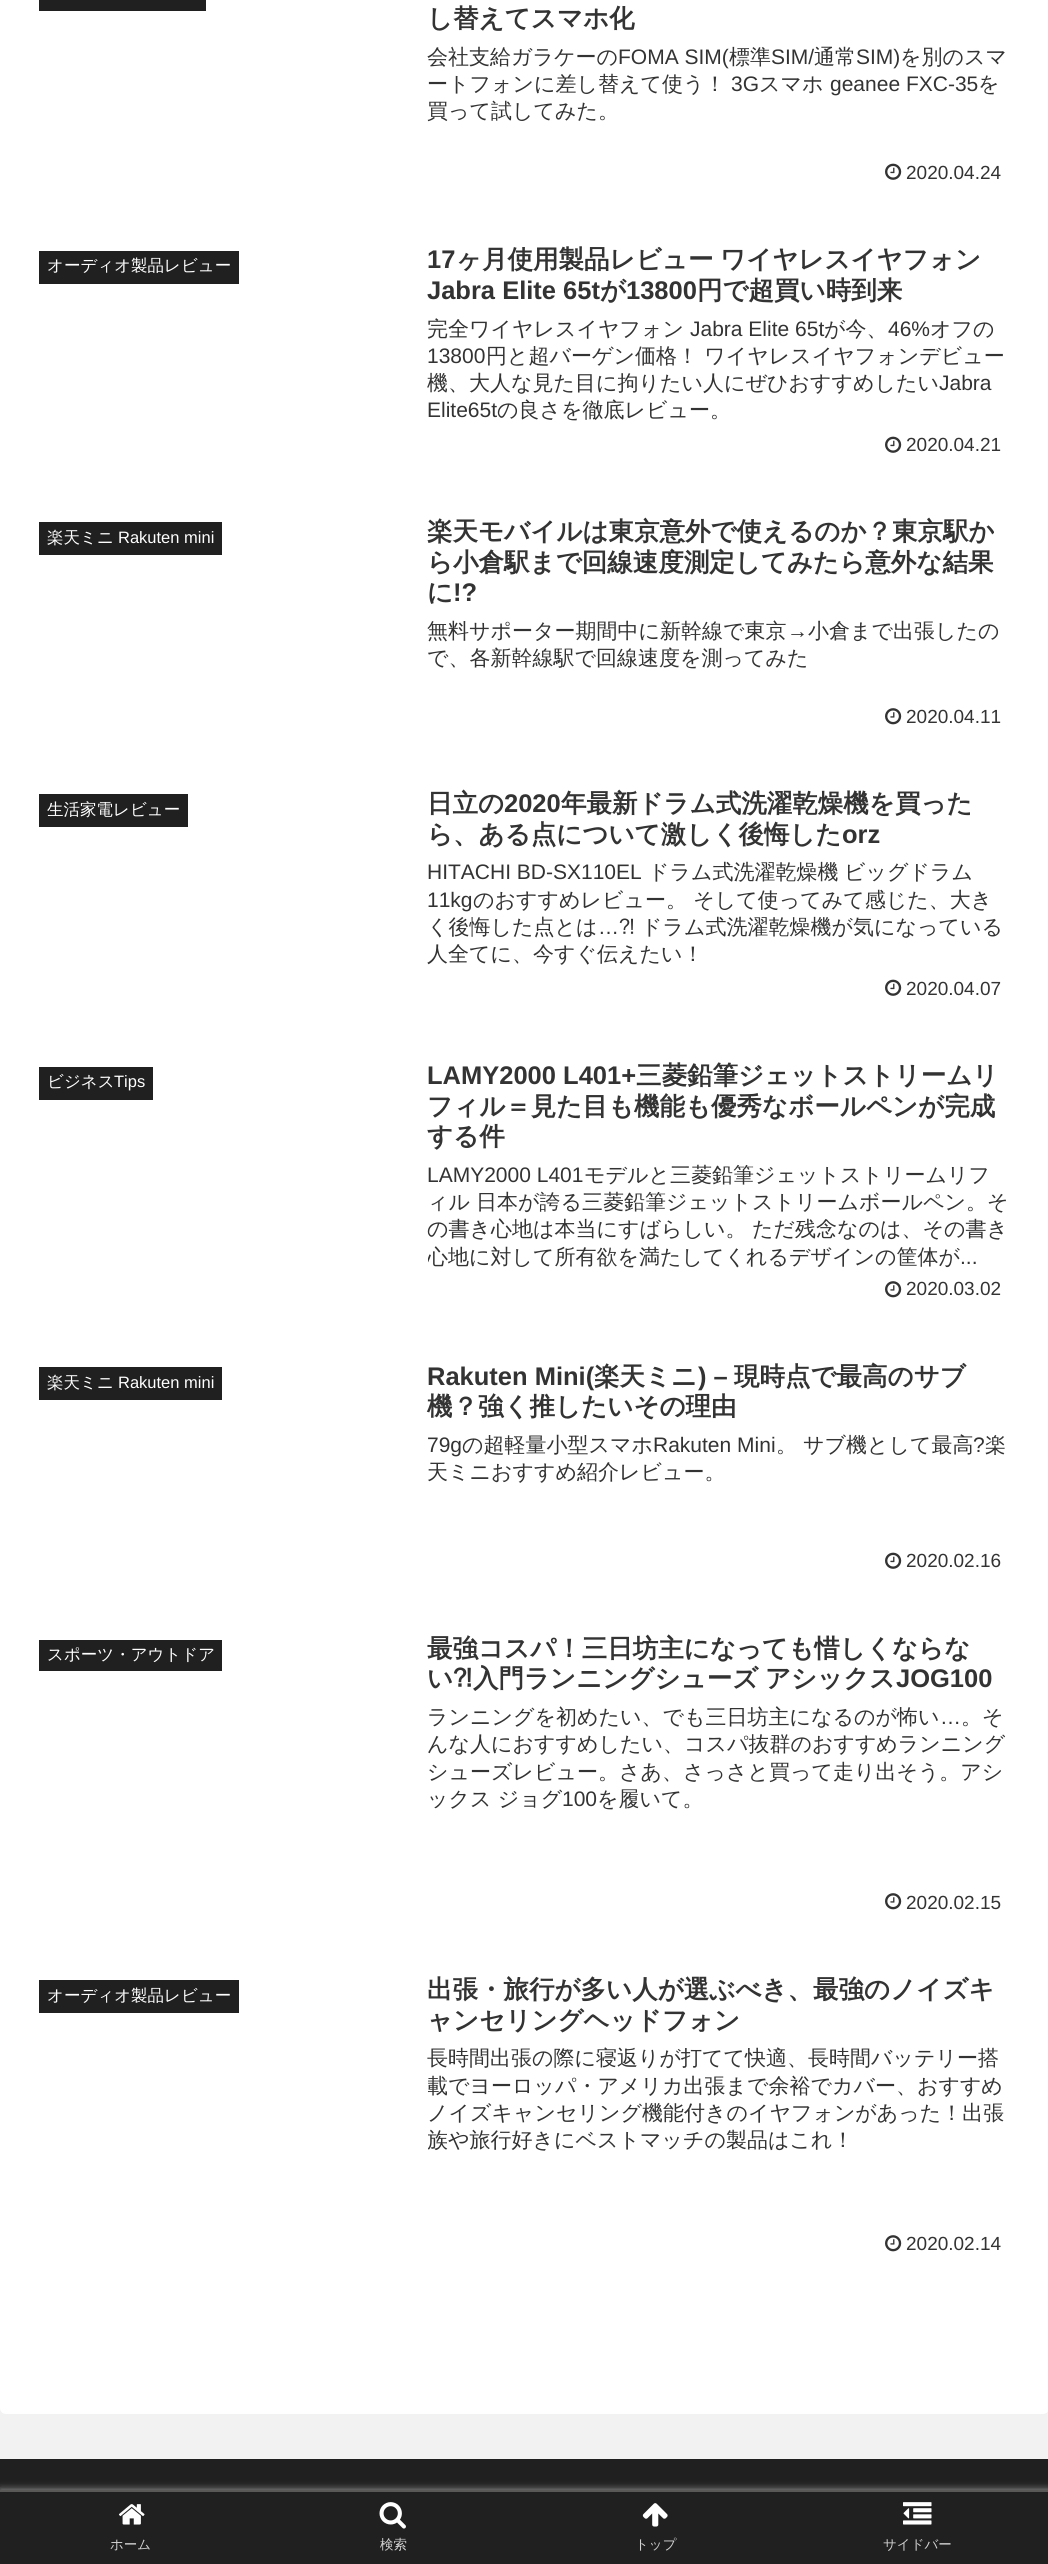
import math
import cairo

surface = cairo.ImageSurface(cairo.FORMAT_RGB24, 1048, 2564)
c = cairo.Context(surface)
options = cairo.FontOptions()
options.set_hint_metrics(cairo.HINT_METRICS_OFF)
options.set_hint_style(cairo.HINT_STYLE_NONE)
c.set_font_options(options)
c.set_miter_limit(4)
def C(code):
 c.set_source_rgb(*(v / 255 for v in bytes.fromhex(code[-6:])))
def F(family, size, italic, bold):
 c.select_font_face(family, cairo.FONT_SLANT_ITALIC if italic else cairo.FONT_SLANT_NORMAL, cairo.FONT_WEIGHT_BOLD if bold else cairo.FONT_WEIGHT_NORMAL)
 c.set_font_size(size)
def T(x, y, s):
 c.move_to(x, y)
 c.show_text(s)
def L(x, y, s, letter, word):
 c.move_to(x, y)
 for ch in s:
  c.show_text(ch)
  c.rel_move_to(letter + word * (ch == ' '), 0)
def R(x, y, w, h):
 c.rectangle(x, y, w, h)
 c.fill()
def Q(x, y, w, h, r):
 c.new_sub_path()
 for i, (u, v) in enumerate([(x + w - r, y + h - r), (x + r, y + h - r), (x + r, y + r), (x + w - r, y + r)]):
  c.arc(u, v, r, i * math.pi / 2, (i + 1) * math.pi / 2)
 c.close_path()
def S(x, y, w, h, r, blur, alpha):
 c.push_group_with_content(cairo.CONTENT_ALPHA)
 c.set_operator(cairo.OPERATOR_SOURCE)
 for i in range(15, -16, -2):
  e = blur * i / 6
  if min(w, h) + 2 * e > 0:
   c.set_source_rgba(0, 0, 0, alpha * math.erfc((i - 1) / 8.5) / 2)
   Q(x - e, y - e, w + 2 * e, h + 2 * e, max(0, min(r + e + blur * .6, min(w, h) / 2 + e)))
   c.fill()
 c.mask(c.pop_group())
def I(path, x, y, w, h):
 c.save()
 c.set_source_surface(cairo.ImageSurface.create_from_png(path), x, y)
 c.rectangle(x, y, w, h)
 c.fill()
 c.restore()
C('f2f2f2')
c.paint()
C('ffffff')
Q(0,-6,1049,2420,6)
c.fill()
C('202020')
R(39,0,167,11)
F('WenQuanYi Zen Hei',25.5,0,1)
C('333333')
T(427,27,'し替えてスマホ化')
F('WenQuanYi Zen Hei Medium',21,0,0)
T(427,64,'会社支給ガラケーの')
F('Liberation Sans',21,0,0)
T(618,64,'FOMA SIM(')
F('WenQuanYi Zen Hei Medium',21,0,0)
T(729,64,'標準')
F('Liberation Sans',21,0,0)
T(771,64,'SIM/')
F('WenQuanYi Zen Hei Medium',21,0,0)
T(814,64,'通常')
F('Liberation Sans',21,0,0)
T(856,64,'SIM)')
F('WenQuanYi Zen Hei Medium',21,0,0)
T(900,64,'を別のスマ')
T(427,91,'ートフォンに差し替えて使う！')
F('Liberation Sans',21,0,0)
T(731,91,'3G')
F('WenQuanYi Zen Hei Medium',21,0,0)
T(759,91,'スマホ')
F('Liberation Sans',21,0,0)
T(830,91,'geanee FXC-35')
F('WenQuanYi Zen Hei Medium',21,0,0)
T(978,91,'を')
T(427,118,'買って試してみた。')
I('1.png',885,163,17,17)
F('Liberation Sans',19,0,0)
T(906,179,'2020.04.24')
C('202020')
R(39,251,200,33)
F('WenQuanYi Zen Hei Medium',16.5,0,0)
C('ffffff')
T(47,271,'オーディオ製品レビュー')
F('Liberation Sans',25.5,0,1)
C('333333')
T(427,268,'17')
F('WenQuanYi Zen Hei',25.5,0,1)
L(456,268,'ヶ月使用製品レビュー ワイヤレスイヤフォン',0,-1)
F('Liberation Sans',25.5,0,1)
T(427,299,'Jabra Elite 65t')
F('WenQuanYi Zen Hei',25.5,0,1)
T(600,299,'が')
F('Liberation Sans',25.5,0,1)
T(626,299,'13800')
F('WenQuanYi Zen Hei',25.5,0,1)
T(697,299,'円で超買い時到来')
F('WenQuanYi Zen Hei Medium',21,0,0)
T(427,336,'完全ワイヤレスイヤフォン')
F('Liberation Sans',21,0,0)
T(690,336,'Jabra Elite 65t')
F('WenQuanYi Zen Hei Medium',21,0,0)
T(824,336,'が今、')
F('Liberation Sans',21,0,0)
T(888,336,'46%')
F('WenQuanYi Zen Hei Medium',21,0,0)
T(930,336,'オフの')
F('Liberation Sans',21,0,0)
T(427,363,'13800')
F('WenQuanYi Zen Hei Medium',21,0,0)
T(486,363,'円と超バーゲン価格！ ワイヤレスイヤフォンデビュー')
T(427,390,'機、大人な見た目に拘りたい人にぜひおすすめしたい')
F('Liberation Sans',21,0,0)
T(939,390,'Jabra')
T(427,417,'Elite65t')
F('WenQuanYi Zen Hei Medium',21,0,0)
T(497,417,'の良さを徹底レビュー。')
I('1.png',885,436,17,17)
F('Liberation Sans',19,0,0)
T(906,451,'2020.04.21')
C('202020')
R(39,522,183,33)
F('WenQuanYi Zen Hei Medium',16.5,0,0)
C('ffffff')
T(47,543,'楽天ミニ')
F('Liberation Sans',16.5,0,0)
T(118,543,'Rakuten mini')
F('WenQuanYi Zen Hei',25.5,0,1)
C('333333')
T(427,540,'楽天モバイルは東京意外で使えるのか？東京駅か')
T(427,571,'ら小倉駅まで回線速度測定してみたら意外な結果')
T(427,601,'に')
F('Liberation Sans',25.5,0,1)
T(453,601,'!?')
F('WenQuanYi Zen Hei Medium',21,0,0)
T(427,638,'無料サポーター期間中に新幹線で東京')
F('Liberation Sans',21,0,0)
T(787,638,'→')
F('WenQuanYi Zen Hei Medium',21,0,0)
T(808,638,'小倉まで出張したの')
T(427,665,'で、各新幹線駅で回線速度を測ってみた')
I('2.png',885,708,17,17)
F('Liberation Sans',19,0,0)
T(906,723,'2020.04.11')
C('202020')
R(39,794,149,33)
F('WenQuanYi Zen Hei Medium',16.5,0,0)
C('ffffff')
T(47,815,'生活家電レビュー')
F('WenQuanYi Zen Hei',25.5,0,1)
C('333333')
T(427,812,'日立の')
F('Liberation Sans',25.5,0,1)
T(504,812,'2020')
F('WenQuanYi Zen Hei',25.5,0,1)
T(561,812,'年最新ドラム式洗濯乾燥機を買った')
T(427,843,'ら、ある点について激しく後悔した')
F('Liberation Sans',25.5,0,1)
T(842,843,'orz')
F('Liberation Sans',21,0,0)
T(427,879,'HITACHI BD-SX110EL')
F('WenQuanYi Zen Hei Medium',21,0,0)
T(648,879,'ドラム式洗濯乾燥機')
T(844,879,'ビッグドラム')
F('Liberation Sans',21,0,0)
T(427,907,'11kg')
F('WenQuanYi Zen Hei Medium',21,0,0)
T(473,907,'のおすすめレビュー。 そして使ってみて感じた、大き')
T(427,934,'く後悔した点とは')
F('Liberation Sans',21,0,0)
T(598,934,'…')
F('IPAPGothic',21,0,0)
T(619,934,'⁈')
F('WenQuanYi Zen Hei Medium',21,0,0)
T(641,934,'ドラム式洗濯乾燥機が気になっている')
T(427,961,'人全てに、今すぐ伝えたい！')
I('1.png',885,979,17,17)
F('Liberation Sans',19,0,0)
T(906,995,'2020.04.07')
C('202020')
R(39,1067,114,33)
F('WenQuanYi Zen Hei Medium',16.5,0,0)
C('ffffff')
T(47,1087,'ビジネス')
F('Liberation Sans',16.5,0,0)
T(114,1087,'Tips')
F('Liberation Sans',25.5,0,1)
C('333333')
T(427,1084,'LAMY2000 L401+')
F('WenQuanYi Zen Hei',25.5,0,1)
T(636,1084,'三菱鉛筆ジェットストリームリ')
T(427,1115,'フィル＝見た目も機能も優秀なボールペンが完成')
T(427,1145,'する件')
F('Liberation Sans',21,0,0)
T(427,1182,'LAMY2000 L401')
F('WenQuanYi Zen Hei Medium',21,0,0)
T(584,1182,'モデルと三菱鉛筆ジェットストリームリフ')
T(427,1209,'ィル')
T(476,1209,'日本が誇る三菱鉛筆ジェットストリームボールペン。そ')
T(427,1236,'の書き心地は本当にすばらしい。')
T(752,1236,'ただ残念なのは、その書き')
c.save()
c.rectangle(428,1161,582,110)
c.clip()
T(427,1264,'心地に対して所有欲を満たしてくれるデザインの筐体が')
c.restore()
F('Liberation Sans',21,0,0)
T(960,1264,'...')
I('2.png',885,1281,17,17)
F('Liberation Sans',19,0,0)
T(906,1295,'2020.03.02')
C('202020')
R(39,1367,183,33)
F('WenQuanYi Zen Hei Medium',16.5,0,0)
C('ffffff')
T(47,1388,'楽天ミニ')
F('Liberation Sans',16.5,0,0)
T(118,1388,'Rakuten mini')
F('Liberation Sans',25.5,0,1)
C('333333')
T(427,1385,'Rakuten Mini(')
F('WenQuanYi Zen Hei',25.5,0,1)
T(594,1385,'楽天ミニ')
F('Liberation Sans',25.5,0,1)
T(698,1385,') –')
F('WenQuanYi Zen Hei',25.5,0,1)
T(734,1385,'現時点で最高のサブ')
T(427,1415,'機？強く推したいその理由')
F('Liberation Sans',21,0,0)
T(427,1452,'79g')
F('WenQuanYi Zen Hei Medium',21,0,0)
T(462,1452,'の超軽量小型スマホ')
F('Liberation Sans',21,0,0)
T(653,1452,'Rakuten Mini')
F('WenQuanYi Zen Hei Medium',21,0,0)
T(776,1452,'。')
T(803,1452,'サブ機として最高')
F('Liberation Sans',21,0,0)
T(973,1452,'?')
F('WenQuanYi Zen Hei Medium',21,0,0)
T(985,1452,'楽')
T(427,1479,'天ミニおすすめ紹介レビュー。')
I('1.png',885,1552,17,17)
F('Liberation Sans',19,0,0)
T(906,1567,'2020.02.16')
C('202020')
R(39,1640,183,31)
F('WenQuanYi Zen Hei Medium',16.5,0,0)
C('ffffff')
T(47,1660,'スポーツ・アウトドア')
F('WenQuanYi Zen Hei',25.5,0,1)
C('333333')
T(427,1657,'最強コスパ！三日坊主になっても惜しくならな')
T(427,1687,'い')
F('IPAPGothic',25.5,0,1)
T(453,1687,'⁈')
F('WenQuanYi Zen Hei',25.5,0,1)
L(473,1687,'入門ランニングシューズ アシックス',0,-1)
F('Liberation Sans',25.5,0,1)
T(896,1687,'JOG100')
F('WenQuanYi Zen Hei Medium',21,0,0)
T(427,1724,'ランニングを初めたい、でも三日坊主になるのが怖い')
F('Liberation Sans',21,0,0)
T(940,1724,'…')
F('WenQuanYi Zen Hei Medium',21,0,0)
T(961,1724,'。そ')
T(427,1751,'んな人におすすめしたい、コスパ抜群のおすすめランニング')
T(427,1779,'シューズレビュー。さあ、さっさと買って走り出そう。アシ')
T(427,1806,'ックス ジョグ')
F('Liberation Sans',21,0,0)
T(562,1806,'100')
F('WenQuanYi Zen Hei Medium',21,0,0)
T(597,1806,'を履いて。')
I('2.png',885,1893,17,17)
F('Liberation Sans',19,0,0)
T(906,1909,'2020.02.15')
C('202020')
R(39,1980,200,33)
F('WenQuanYi Zen Hei Medium',16.5,0,0)
C('ffffff')
T(47,2001,'オーディオ製品レビュー')
F('WenQuanYi Zen Hei',25.5,0,1)
C('333333')
T(427,1998,'出張・旅行が多い人が選ぶべき、最強のノイズキ')
T(427,2029,'ャンセリングヘッドフォン')
F('WenQuanYi Zen Hei Medium',21,0,0)
T(427,2065,'長時間出張の際に寝返りが打てて快適、長時間バッテリー搭')
c.save()
c.rectangle(428,2045,582,109)
c.clip()
T(427,2093,'載でヨーロッパ・アメリカ出張まで余裕でカバー、おすすめ')
c.restore()
T(427,2120,'ノイズキャンセリング機能付きのイヤフォンがあった！出張')
c.save()
c.rectangle(428,2045,582,109)
c.clip()
T(427,2147,'族や旅行好きにベストマッチの製品はこれ！')
c.restore()
I('2.png',885,2235,17,17)
F('Liberation Sans',19,0,0)
T(906,2250,'2020.02.14')
C('202020')
R(0,2459,1048,31)
C('a9a9a9')
S(0,2490,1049,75,0,4,1)
C('202020')
R(0,2492,1048,72)
C('595857')
R(0,2490,1048,2)
I('3.png',119,2504,26,21)
F('WenQuanYi Zen Hei Medium',13.5,0,0)
C('d2d2d2')
T(110,2549,'ホーム')
I('4.png',379,2502,27,27)
T(380,2549,'検索')
I('5.png',642,2503,26,24)
T(635,2549,'トップ')
I('6.png',903,2502,29,23)
T(883,2549,'サイドバー')
surface.write_to_png('o.png')
